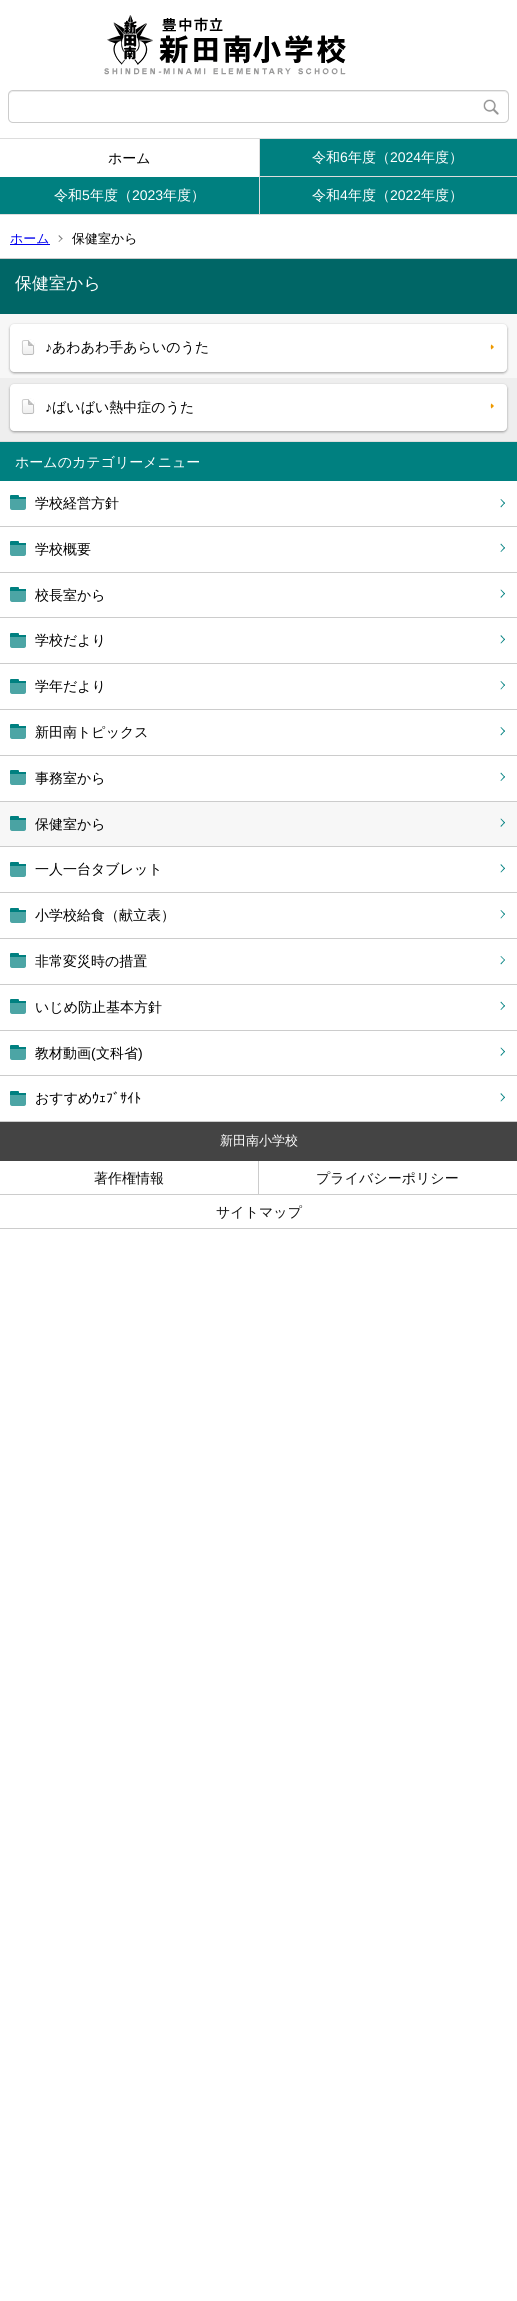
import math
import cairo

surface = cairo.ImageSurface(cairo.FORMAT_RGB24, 517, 2301)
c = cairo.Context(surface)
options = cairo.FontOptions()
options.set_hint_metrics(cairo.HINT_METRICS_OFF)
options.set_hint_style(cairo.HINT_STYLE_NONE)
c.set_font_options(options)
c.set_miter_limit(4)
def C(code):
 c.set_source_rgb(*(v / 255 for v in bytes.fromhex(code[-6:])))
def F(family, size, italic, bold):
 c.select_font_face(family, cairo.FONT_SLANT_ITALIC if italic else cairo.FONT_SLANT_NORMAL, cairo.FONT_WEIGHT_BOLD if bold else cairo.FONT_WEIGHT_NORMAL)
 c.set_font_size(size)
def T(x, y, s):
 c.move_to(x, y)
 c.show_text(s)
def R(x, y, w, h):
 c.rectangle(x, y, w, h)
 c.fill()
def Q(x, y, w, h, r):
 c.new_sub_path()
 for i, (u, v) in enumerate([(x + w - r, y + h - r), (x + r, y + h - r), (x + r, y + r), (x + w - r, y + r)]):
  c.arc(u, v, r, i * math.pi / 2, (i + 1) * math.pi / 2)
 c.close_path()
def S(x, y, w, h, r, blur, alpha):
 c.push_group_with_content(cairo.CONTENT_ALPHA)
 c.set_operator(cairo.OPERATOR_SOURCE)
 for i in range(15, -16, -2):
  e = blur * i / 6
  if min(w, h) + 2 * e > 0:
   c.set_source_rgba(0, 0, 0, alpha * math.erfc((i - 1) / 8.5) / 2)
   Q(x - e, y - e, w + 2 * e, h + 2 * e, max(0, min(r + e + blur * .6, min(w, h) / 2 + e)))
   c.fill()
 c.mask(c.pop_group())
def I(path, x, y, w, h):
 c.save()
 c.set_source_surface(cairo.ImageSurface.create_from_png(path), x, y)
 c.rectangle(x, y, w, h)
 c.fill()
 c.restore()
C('ffffff')
c.paint()
I('1.png',104,15,242,60)
C('ececec')
c.new_path()
c.move_to(13,92)
c.line_to(504,92)
c.curve_to(506,92,508,94,508,96)
c.curve_to(508,93,507,91,504,91)
c.line_to(13,91)
c.curve_to(10,91,9,93,9,96)
c.curve_to(9,94,11,92,13,92)
c.close_path()
c.fill()
Q(8.5,90.5,500,32,4.5)
C('cccccc')
c.set_line_width(1)
c.stroke()
I('2.png',483,99,16,16)
C('dddddd')
R(0,138,517,1)
F('WenQuanYi Zen Hei Medium',14,0,0)
C('000000')
T(108,163,'ホーム')
C('dddddd')
R(259,176,258,1)
R(0,214,517,1)
R(259,139,1,76)
C('008080')
R(260,139,257,37)
C('ffffff')
T(312,162,'令和')
F('Liberation Sans',14,0,0)
T(340,162,'6')
F('WenQuanYi Zen Hei Medium',14,0,0)
T(348,162,'年度（')
F('Liberation Sans',14,0,0)
T(390,162,'2024')
F('WenQuanYi Zen Hei Medium',14,0,0)
T(421,162,'年度）')
C('008080')
R(0,177,259,37)
C('ffffff')
T(54,200,'令和')
F('Liberation Sans',14,0,0)
T(82,200,'5')
F('WenQuanYi Zen Hei Medium',14,0,0)
T(90,200,'年度（')
F('Liberation Sans',14,0,0)
T(132,200,'2023')
F('WenQuanYi Zen Hei Medium',14,0,0)
T(163,200,'年度）')
C('008080')
R(260,177,257,37)
C('ffffff')
T(312,200,'令和')
F('Liberation Sans',14,0,0)
T(340,200,'4')
F('WenQuanYi Zen Hei Medium',14,0,0)
T(348,200,'年度（')
F('Liberation Sans',14,0,0)
T(390,200,'2022')
F('WenQuanYi Zen Hei Medium',14,0,0)
T(421,200,'年度）')
C('cccccc')
R(0,258,517,1)
C('0000ee')
R(10,244,40,1)
F('WenQuanYi Zen Hei Medium',13,0,0)
T(10,243,'ホーム')
C('777777')
c.new_path()
c.move_to(59,235)
c.line_to(62.5,238.5)
c.line_to(62,239.5)
c.line_to(58.5,236)
c.close_path()
c.fill()
c.new_path()
c.move_to(62,238)
c.line_to(62.5,238.5)
c.line_to(59,242)
c.line_to(58.5,241.5)
c.close_path()
c.fill()
C('000000')
T(72,243,'保健室から')
C('006666')
R(0,259,517,55)
F('WenQuanYi Zen Hei Medium',17,0,0)
C('ffffff')
T(15,289,'保健室から')
C('f7f7f7')
R(0,314,517,64)
C('dddddd')
R(0,441,517,1)
C('444444')
S(10,325,497,48,4,1,.35)
S(10,325,497,48,4,1.5,.2)
C('ffffff')
Q(10,324,497,48,4)
c.fill()
c.save()
Q(22,340,12,15,2)
c.clip()
gradient = cairo.LinearGradient(28,341,28,354)
gradient.add_color_stop_rgba(0,1,1,1,1)
gradient.add_color_stop_rgba(1,0.933,0.933,0.933,1)
c.set_source(gradient)
R(22,341,12,13)
c.restore()
c.new_path()
c.move_to(33,341)
c.curve_to(34,342,33.5,346,33.5,347.5)
c.curve_to(33.5,355,35,354.5,28,354.5)
c.curve_to(27,354.5,24,355,23,354)
C('bbbbbb')
c.stroke()
c.new_path()
c.move_to(23,354)
c.curve_to(22,353,22.5,349,22.5,347.5)
c.curve_to(22.5,340,21,340.5,28,340.5)
c.curve_to(29,340.5,32,340,33,341)
C('cccccc')
c.stroke()
C('ffffff')
c.new_path()
c.move_to(28,340)
c.line_to(34,340)
c.line_to(31,343)
c.close_path()
c.fill()
c.new_path()
c.move_to(34,340)
c.line_to(34,346)
c.line_to(31,343)
c.close_path()
c.fill()
C('bbbbbb')
c.new_path()
c.move_to(34,346)
c.line_to(28,346)
c.line_to(31,343)
c.close_path()
c.fill()
c.new_path()
c.move_to(28,346)
c.line_to(28,340)
c.line_to(31,343)
c.close_path()
c.fill()
F('Liberation Sans',14,0,0)
C('000000')
T(45,352,'♪')
F('WenQuanYi Zen Hei Medium',14,0,0)
T(52,352,'あわあわ手あらいのうた')
C('ee9900')
c.new_path()
c.move_to(494,347)
c.line_to(491.5,349.5)
c.curve_to(490.5,349,490.5,345,491.5,344.5)
c.close_path()
c.fill()
C('eeeeee')
R(0,378,517,63)
C('444444')
S(10,385,497,47,4,1,.35)
S(10,385,497,47,4,1.5,.2)
C('ffffff')
Q(10,384,497,47,4)
c.fill()
c.save()
Q(22,399,12,15,2)
c.clip()
gradient = cairo.LinearGradient(28,400,28,413)
gradient.add_color_stop_rgba(0,1,1,1,1)
gradient.add_color_stop_rgba(1,0.933,0.933,0.933,1)
c.set_source(gradient)
R(22,400,12,13)
c.restore()
c.new_path()
c.move_to(33,400)
c.curve_to(34,401,33.5,405,33.5,406.5)
c.curve_to(33.5,414,35,413.5,28,413.5)
c.curve_to(27,413.5,24,414,23,413)
C('bbbbbb')
c.stroke()
c.new_path()
c.move_to(23,413)
c.curve_to(22,412,22.5,408,22.5,406.5)
c.curve_to(22.5,399,21,399.5,28,399.5)
c.curve_to(29,399.5,32,399,33,400)
C('cccccc')
c.stroke()
C('ffffff')
c.new_path()
c.move_to(28,399)
c.line_to(34,399)
c.line_to(31,402)
c.close_path()
c.fill()
c.new_path()
c.move_to(34,399)
c.line_to(34,405)
c.line_to(31,402)
c.close_path()
c.fill()
C('bbbbbb')
c.new_path()
c.move_to(34,405)
c.line_to(28,405)
c.line_to(31,402)
c.close_path()
c.fill()
c.new_path()
c.move_to(28,405)
c.line_to(28,399)
c.line_to(31,402)
c.close_path()
c.fill()
F('Liberation Sans',14,0,0)
C('000000')
T(45,412,'♪')
F('WenQuanYi Zen Hei Medium',14,0,0)
T(52,412,'ばいばい熱中症のうた')
C('ee9900')
c.new_path()
c.move_to(494,406)
c.line_to(491.5,408.5)
c.curve_to(490.5,408,490.5,404,491.5,403.5)
c.close_path()
c.fill()
C('008080')
R(0,442,517,39)
C('ffffff')
T(15,467,'ホームのカテゴリーメニュー')
C('cccccc')
R(0,1121,517,1)
C('008080')
c.new_path()
c.move_to(11,495)
c.line_to(18,495)
c.curve_to(18.5,495,19,495.5,19,496)
c.line_to(19,498)
c.line_to(10,498)
c.line_to(10,496)
c.curve_to(10,495.5,10.5,495,11,495)
c.close_path()
c.fill()
C('000000')
T(35,508,'学校経営方針')
c.set_source_rgba(0,0.502,0.502,0.7)
c.new_path()
c.move_to(10,497)
c.line_to(25,497)
c.curve_to(25.5,497,26,497.5,26,498)
c.line_to(26,508)
c.curve_to(26,509,25,510,24,510)
c.line_to(12,510)
c.curve_to(11,510,10,509,10,508)
c.close_path()
c.fill()
C('008080')
R(10,497,16,2)
c.new_path()
c.move_to(501,499)
c.line_to(505,503)
c.line_to(504.5,504)
c.line_to(500.5,499.5)
c.close_path()
c.fill()
c.new_path()
c.move_to(504.5,502.5)
c.line_to(505,503)
c.line_to(501,507.5)
c.line_to(500.5,506.5)
c.close_path()
c.fill()
C('cccccc')
R(0,526,517,1)
C('008080')
c.new_path()
c.move_to(11,541)
c.line_to(18,541)
c.curve_to(18.5,541,19,541.5,19,542)
c.line_to(19,544)
c.line_to(10,544)
c.line_to(10,542)
c.curve_to(10,541.5,10.5,541,11,541)
c.close_path()
c.fill()
C('000000')
T(35,554,'学校概要')
c.set_source_rgba(0,0.502,0.502,0.7)
c.new_path()
c.move_to(10,543)
c.line_to(25,543)
c.curve_to(25.5,543,26,543.5,26,544)
c.line_to(26,554)
c.curve_to(26,555,25,556,24,556)
c.line_to(12,556)
c.curve_to(11,556,10,555,10,554)
c.close_path()
c.fill()
C('008080')
R(10,543,16,2)
c.new_path()
c.move_to(501,543.5)
c.line_to(505,548)
c.line_to(504.5,548.5)
c.line_to(500.5,544.5)
c.close_path()
c.fill()
c.new_path()
c.move_to(504.5,547)
c.line_to(505,548)
c.line_to(501,552)
c.line_to(500.5,551.5)
c.close_path()
c.fill()
C('cccccc')
R(0,572,517,1)
C('008080')
c.new_path()
c.move_to(11,587)
c.line_to(18,587)
c.curve_to(18.5,587,19,587.5,19,588)
c.line_to(19,590)
c.line_to(10,590)
c.line_to(10,588)
c.curve_to(10,587.5,10.5,587,11,587)
c.close_path()
c.fill()
C('000000')
T(35,600,'校長室から')
c.set_source_rgba(0,0.502,0.502,0.7)
c.new_path()
c.move_to(10,589)
c.line_to(25,589)
c.curve_to(25.5,589,26,589.5,26,590)
c.line_to(26,600)
c.curve_to(26,601,25,602,24,602)
c.line_to(12,602)
c.curve_to(11,602,10,601,10,600)
c.close_path()
c.fill()
C('008080')
R(10,589,16,2)
c.new_path()
c.move_to(501,589.5)
c.line_to(505,593.5)
c.line_to(504.5,594.5)
c.line_to(500.5,590)
c.close_path()
c.fill()
c.new_path()
c.move_to(504.5,593)
c.line_to(505,593.5)
c.line_to(501,598)
c.line_to(500.5,597)
c.close_path()
c.fill()
C('cccccc')
R(0,617,517,1)
C('008080')
c.new_path()
c.move_to(11,633)
c.line_to(18,633)
c.curve_to(18.5,633,19,633.5,19,634)
c.line_to(19,636)
c.line_to(10,636)
c.line_to(10,634)
c.curve_to(10,633.5,10.5,633,11,633)
c.close_path()
c.fill()
C('000000')
T(35,645,'学校だより')
c.set_source_rgba(0,0.502,0.502,0.7)
c.new_path()
c.move_to(10,635)
c.line_to(25,635)
c.curve_to(25.5,635,26,635.5,26,636)
c.line_to(26,646)
c.curve_to(26,647,25,648,24,648)
c.line_to(12,648)
c.curve_to(11,648,10,647,10,646)
c.close_path()
c.fill()
C('008080')
R(10,635,16,2)
c.new_path()
c.move_to(501,635)
c.line_to(505,639.5)
c.line_to(504.5,640)
c.line_to(500.5,636)
c.close_path()
c.fill()
c.new_path()
c.move_to(504.5,638.5)
c.line_to(505,639.5)
c.line_to(501,643.5)
c.line_to(500.5,643)
c.close_path()
c.fill()
C('cccccc')
R(0,663,517,1)
C('008080')
c.new_path()
c.move_to(11,679)
c.line_to(18,679)
c.curve_to(18.5,679,19,679.5,19,680)
c.line_to(19,682)
c.line_to(10,682)
c.line_to(10,680)
c.curve_to(10,679.5,10.5,679,11,679)
c.close_path()
c.fill()
C('000000')
T(35,691,'学年だより')
c.set_source_rgba(0,0.502,0.502,0.7)
c.new_path()
c.move_to(10,681)
c.line_to(25,681)
c.curve_to(25.5,681,26,681.5,26,682)
c.line_to(26,692)
c.curve_to(26,693,25,694,24,694)
c.line_to(12,694)
c.curve_to(11,694,10,693,10,692)
c.close_path()
c.fill()
C('008080')
R(10,681,16,2)
c.new_path()
c.move_to(501,681)
c.line_to(505,685)
c.line_to(504.5,686)
c.line_to(500.5,681.5)
c.close_path()
c.fill()
c.new_path()
c.move_to(504.5,684.5)
c.line_to(505,685)
c.line_to(501,689.5)
c.line_to(500.5,689)
c.close_path()
c.fill()
C('cccccc')
R(0,709,517,1)
C('008080')
c.new_path()
c.move_to(11,724)
c.line_to(18,724)
c.curve_to(18.5,724,19,724.5,19,725)
c.line_to(19,727)
c.line_to(10,727)
c.line_to(10,725)
c.curve_to(10,724.5,10.5,724,11,724)
c.close_path()
c.fill()
C('000000')
T(35,737,'新田南トピックス')
c.set_source_rgba(0,0.502,0.502,0.7)
c.new_path()
c.move_to(10,726)
c.line_to(25,726)
c.curve_to(25.5,726,26,726.5,26,727)
c.line_to(26,737)
c.curve_to(26,738,25,739,24,739)
c.line_to(12,739)
c.curve_to(11,739,10,738,10,737)
c.close_path()
c.fill()
C('008080')
R(10,726,16,2)
c.new_path()
c.move_to(501,727)
c.line_to(505,731)
c.line_to(504.5,732)
c.line_to(500.5,727.5)
c.close_path()
c.fill()
c.new_path()
c.move_to(504.5,730.5)
c.line_to(505,731)
c.line_to(501,735.5)
c.line_to(500.5,734.5)
c.close_path()
c.fill()
C('cccccc')
R(0,755,517,1)
C('008080')
c.new_path()
c.move_to(11,770)
c.line_to(18,770)
c.curve_to(18.5,770,19,770.5,19,771)
c.line_to(19,773)
c.line_to(10,773)
c.line_to(10,771)
c.curve_to(10,770.5,10.5,770,11,770)
c.close_path()
c.fill()
C('000000')
T(35,783,'事務室から')
c.set_source_rgba(0,0.502,0.502,0.7)
c.new_path()
c.move_to(10,772)
c.line_to(25,772)
c.curve_to(25.5,772,26,772.5,26,773)
c.line_to(26,783)
c.curve_to(26,784,25,785,24,785)
c.line_to(12,785)
c.curve_to(11,785,10,784,10,783)
c.close_path()
c.fill()
C('008080')
R(10,772,16,2)
c.new_path()
c.move_to(501,772.5)
c.line_to(505,777)
c.line_to(504.5,777.5)
c.line_to(500.5,773.5)
c.close_path()
c.fill()
c.new_path()
c.move_to(504.5,776)
c.line_to(505,777)
c.line_to(501,781)
c.line_to(500.5,780.5)
c.close_path()
c.fill()
C('f7f7f7')
R(0,802,517,44)
C('cccccc')
R(0,801,517,1)
C('008080')
c.new_path()
c.move_to(11,816)
c.line_to(18,816)
c.curve_to(18.5,816,19,816.5,19,817)
c.line_to(19,819)
c.line_to(10,819)
c.line_to(10,817)
c.curve_to(10,816.5,10.5,816,11,816)
c.close_path()
c.fill()
C('000000')
T(35,829,'保健室から')
c.set_source_rgba(0,0.502,0.502,0.7)
c.new_path()
c.move_to(10,818)
c.line_to(25,818)
c.curve_to(25.5,818,26,818.5,26,819)
c.line_to(26,829)
c.curve_to(26,830,25,831,24,831)
c.line_to(12,831)
c.curve_to(11,831,10,830,10,829)
c.close_path()
c.fill()
C('008080')
R(10,818,16,2)
c.new_path()
c.move_to(501,818.5)
c.line_to(505,822.5)
c.line_to(504.5,823.5)
c.line_to(500.5,819)
c.close_path()
c.fill()
c.new_path()
c.move_to(504.5,822)
c.line_to(505,822.5)
c.line_to(501,827)
c.line_to(500.5,826)
c.close_path()
c.fill()
C('cccccc')
R(0,846,517,1)
C('008080')
c.new_path()
c.move_to(11,862)
c.line_to(18,862)
c.curve_to(18.5,862,19,862.5,19,863)
c.line_to(19,865)
c.line_to(10,865)
c.line_to(10,863)
c.curve_to(10,862.5,10.5,862,11,862)
c.close_path()
c.fill()
C('000000')
T(35,874,'一人一台タブレット')
c.set_source_rgba(0,0.502,0.502,0.7)
c.new_path()
c.move_to(10,864)
c.line_to(25,864)
c.curve_to(25.5,864,26,864.5,26,865)
c.line_to(26,875)
c.curve_to(26,876,25,877,24,877)
c.line_to(12,877)
c.curve_to(11,877,10,876,10,875)
c.close_path()
c.fill()
C('008080')
R(10,864,16,2)
c.new_path()
c.move_to(501,864)
c.line_to(505,868.5)
c.line_to(504.5,869)
c.line_to(500.5,865)
c.close_path()
c.fill()
c.new_path()
c.move_to(504.5,867.5)
c.line_to(505,868.5)
c.line_to(501,872.5)
c.line_to(500.5,872)
c.close_path()
c.fill()
C('cccccc')
R(0,892,517,1)
C('008080')
c.new_path()
c.move_to(11,908)
c.line_to(18,908)
c.curve_to(18.5,908,19,908.5,19,909)
c.line_to(19,911)
c.line_to(10,911)
c.line_to(10,909)
c.curve_to(10,908.5,10.5,908,11,908)
c.close_path()
c.fill()
C('000000')
T(35,920,'小学校給食（献立表）')
c.set_source_rgba(0,0.502,0.502,0.7)
c.new_path()
c.move_to(10,910)
c.line_to(25,910)
c.curve_to(25.5,910,26,910.5,26,911)
c.line_to(26,921)
c.curve_to(26,922,25,923,24,923)
c.line_to(12,923)
c.curve_to(11,923,10,922,10,921)
c.close_path()
c.fill()
C('008080')
R(10,910,16,2)
c.new_path()
c.move_to(501,910)
c.line_to(505,914)
c.line_to(504.5,915)
c.line_to(500.5,910.5)
c.close_path()
c.fill()
c.new_path()
c.move_to(504.5,913.5)
c.line_to(505,914)
c.line_to(501,918.5)
c.line_to(500.5,918)
c.close_path()
c.fill()
C('cccccc')
R(0,938,517,1)
C('008080')
c.new_path()
c.move_to(11,953)
c.line_to(18,953)
c.curve_to(18.5,953,19,953.5,19,954)
c.line_to(19,956)
c.line_to(10,956)
c.line_to(10,954)
c.curve_to(10,953.5,10.5,953,11,953)
c.close_path()
c.fill()
C('000000')
T(35,966,'非常変災時の措置')
c.set_source_rgba(0,0.502,0.502,0.7)
c.new_path()
c.move_to(10,955)
c.line_to(25,955)
c.curve_to(25.5,955,26,955.5,26,956)
c.line_to(26,966)
c.curve_to(26,967,25,968,24,968)
c.line_to(12,968)
c.curve_to(11,968,10,967,10,966)
c.close_path()
c.fill()
C('008080')
R(10,955,16,2)
c.new_path()
c.move_to(501,956)
c.line_to(505,960)
c.line_to(504.5,960.5)
c.line_to(500.5,956.5)
c.close_path()
c.fill()
c.new_path()
c.move_to(504.5,959.5)
c.line_to(505,960)
c.line_to(501,964.5)
c.line_to(500.5,963.5)
c.close_path()
c.fill()
C('cccccc')
R(0,984,517,1)
C('008080')
c.new_path()
c.move_to(11,999)
c.line_to(18,999)
c.curve_to(18.5,999,19,999.5,19,1000)
c.line_to(19,1002)
c.line_to(10,1002)
c.line_to(10,1000)
c.curve_to(10,999.5,10.5,999,11,999)
c.close_path()
c.fill()
C('000000')
T(35,1012,'いじめ防止基本方針')
c.set_source_rgba(0,0.502,0.502,0.7)
c.new_path()
c.move_to(10,1001)
c.line_to(25,1001)
c.curve_to(25.5,1001,26,1001.5,26,1002)
c.line_to(26,1012)
c.curve_to(26,1013,25,1014,24,1014)
c.line_to(12,1014)
c.curve_to(11,1014,10,1013,10,1012)
c.close_path()
c.fill()
C('008080')
R(10,1001,16,2)
c.new_path()
c.move_to(501,1001.5)
c.line_to(505,1006)
c.line_to(504.5,1006.5)
c.line_to(500.5,1002.5)
c.close_path()
c.fill()
c.new_path()
c.move_to(504.5,1005)
c.line_to(505,1006)
c.line_to(501,1010)
c.line_to(500.5,1009.5)
c.close_path()
c.fill()
C('cccccc')
R(0,1030,517,1)
C('008080')
c.new_path()
c.move_to(11,1045)
c.line_to(18,1045)
c.curve_to(18.5,1045,19,1045.5,19,1046)
c.line_to(19,1048)
c.line_to(10,1048)
c.line_to(10,1046)
c.curve_to(10,1045.5,10.5,1045,11,1045)
c.close_path()
c.fill()
C('000000')
T(35,1058,'教材動画')
T(96,1058,'文科省')
c.set_source_rgba(0,0.502,0.502,0.7)
c.new_path()
c.move_to(10,1047)
c.line_to(25,1047)
c.curve_to(25.5,1047,26,1047.5,26,1048)
c.line_to(26,1058)
c.curve_to(26,1059,25,1060,24,1060)
c.line_to(12,1060)
c.curve_to(11,1060,10,1059,10,1058)
c.close_path()
c.fill()
C('008080')
R(10,1047,16,2)
F('Liberation Sans',14,0,0)
C('000000')
T(91,1058,'(')
T(138,1058,')')
C('008080')
c.new_path()
c.move_to(501,1047.5)
c.line_to(505,1051.5)
c.line_to(504.5,1052.5)
c.line_to(500.5,1048)
c.close_path()
c.fill()
c.new_path()
c.move_to(504.5,1051)
c.line_to(505,1051.5)
c.line_to(501,1056)
c.line_to(500.5,1055)
c.close_path()
c.fill()
C('cccccc')
R(0,1075,517,1)
C('008080')
c.new_path()
c.move_to(11,1091)
c.line_to(18,1091)
c.curve_to(18.5,1091,19,1091.5,19,1092)
c.line_to(19,1094)
c.line_to(10,1094)
c.line_to(10,1092)
c.curve_to(10,1091.5,10.5,1091,11,1091)
c.close_path()
c.fill()
F('WenQuanYi Zen Hei Medium',14,0,0)
C('000000')
T(35,1103,'おすすめ')
F('IPAPGothic',14,0,0)
T(92,1103,'ｳｪﾌﾞｻｲﾄ')
c.set_source_rgba(0,0.502,0.502,0.7)
c.new_path()
c.move_to(10,1093)
c.line_to(25,1093)
c.curve_to(25.5,1093,26,1093.5,26,1094)
c.line_to(26,1104)
c.curve_to(26,1105,25,1106,24,1106)
c.line_to(12,1106)
c.curve_to(11,1106,10,1105,10,1104)
c.close_path()
c.fill()
C('008080')
R(10,1093,16,2)
c.new_path()
c.move_to(501,1093)
c.line_to(505,1097.5)
c.line_to(504.5,1098)
c.line_to(500.5,1094)
c.close_path()
c.fill()
c.new_path()
c.move_to(504.5,1096.5)
c.line_to(505,1097.5)
c.line_to(501,1101.5)
c.line_to(500.5,1101)
c.close_path()
c.fill()
C('444444')
R(0,1122,517,39)
F('WenQuanYi Zen Hei Medium',13,0,0)
C('ffffff')
T(220,1145,'新田南小学校')
C('cccccc')
R(258,1161,1,34)
R(0,1194,517,1)
F('WenQuanYi Zen Hei Medium',14,0,0)
C('111111')
T(94,1183,'著作権情報')
T(316,1183,'プライバシーポリシー')
C('cccccc')
R(0,1228,517,1)
C('111111')
T(216,1217,'サイトマップ')
surface.write_to_png('o.png')
